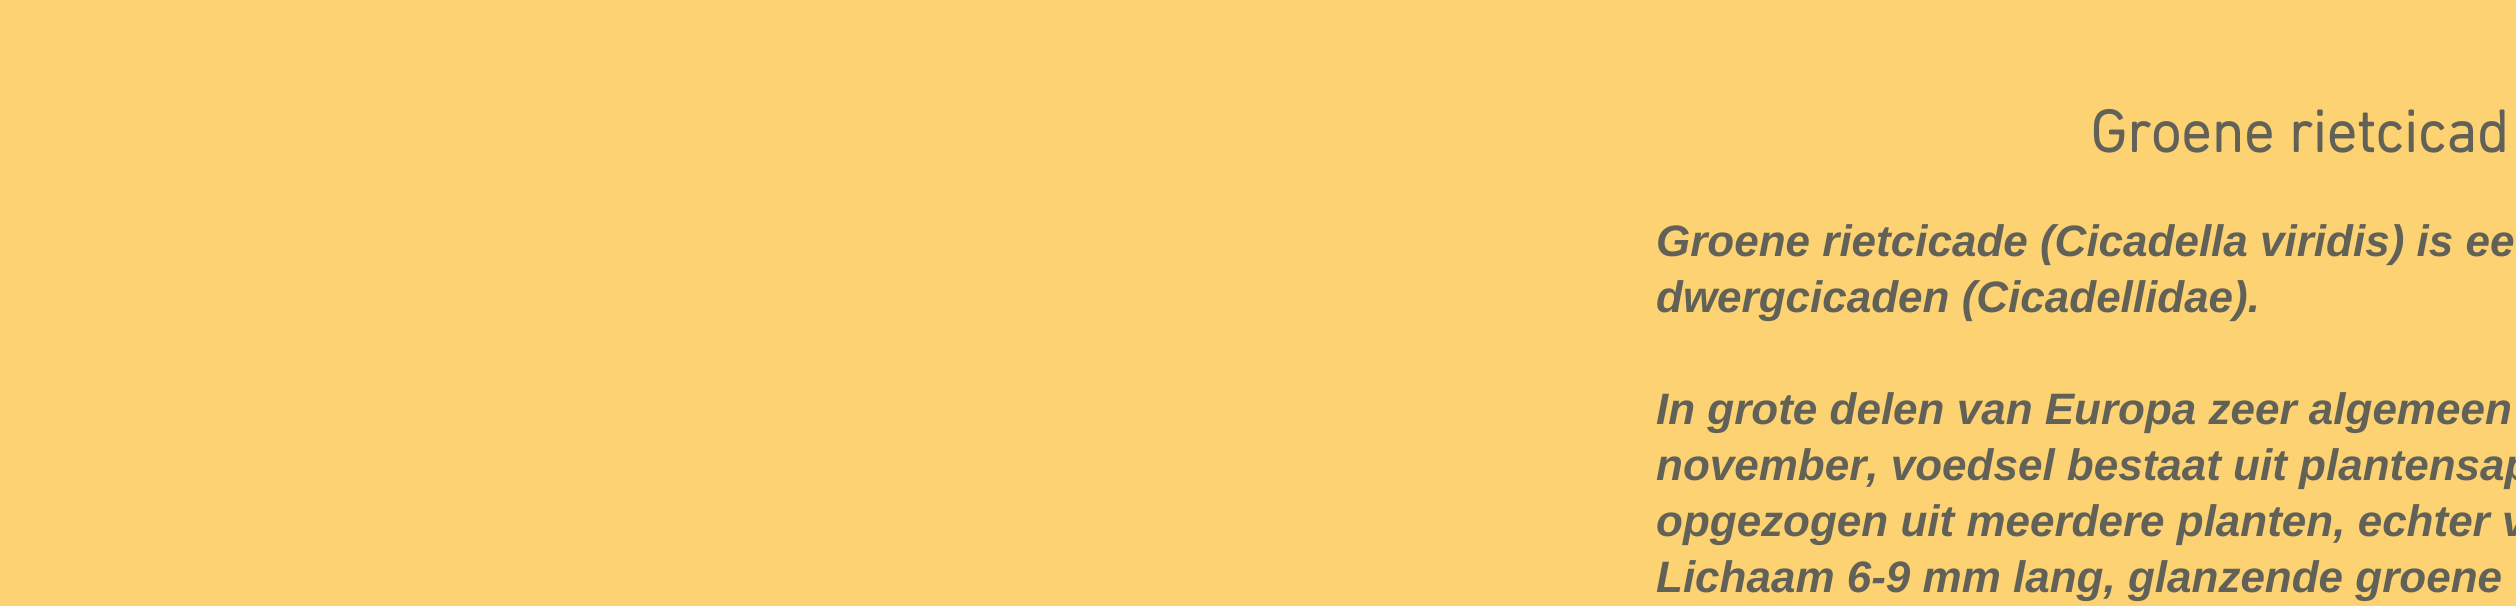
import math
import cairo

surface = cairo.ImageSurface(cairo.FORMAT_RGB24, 2516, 606)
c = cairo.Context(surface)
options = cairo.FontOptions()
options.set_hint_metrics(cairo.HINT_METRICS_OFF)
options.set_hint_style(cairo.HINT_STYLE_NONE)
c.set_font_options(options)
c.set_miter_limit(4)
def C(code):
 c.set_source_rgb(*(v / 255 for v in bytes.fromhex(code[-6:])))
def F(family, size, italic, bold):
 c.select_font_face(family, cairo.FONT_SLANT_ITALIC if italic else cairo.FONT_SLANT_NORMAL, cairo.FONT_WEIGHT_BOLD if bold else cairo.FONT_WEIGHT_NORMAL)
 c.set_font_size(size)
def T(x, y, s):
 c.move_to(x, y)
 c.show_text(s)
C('fcd272')
c.paint()
F('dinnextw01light',60,0,1)
C('616158')
T(2090,152,'Groene rietcicad')
F('Liberation Sans',44,1,1)
T(1656,256,'Groene rietcicade (Cicadella viridis) is ee')
T(1656,312,'dwergcicaden (Cicadellidae).')
T(1656,424,'In grote delen van Europa zeer algemeen')
T(1656,480,'november, voedsel bestaat uit plantensap')
T(1656,536,'opgezogen uit meerdere planten, echter v')
T(1656,592,'Lichaam 6-9 mm lang, glanzende groene')
surface.write_to_png('o.png')
